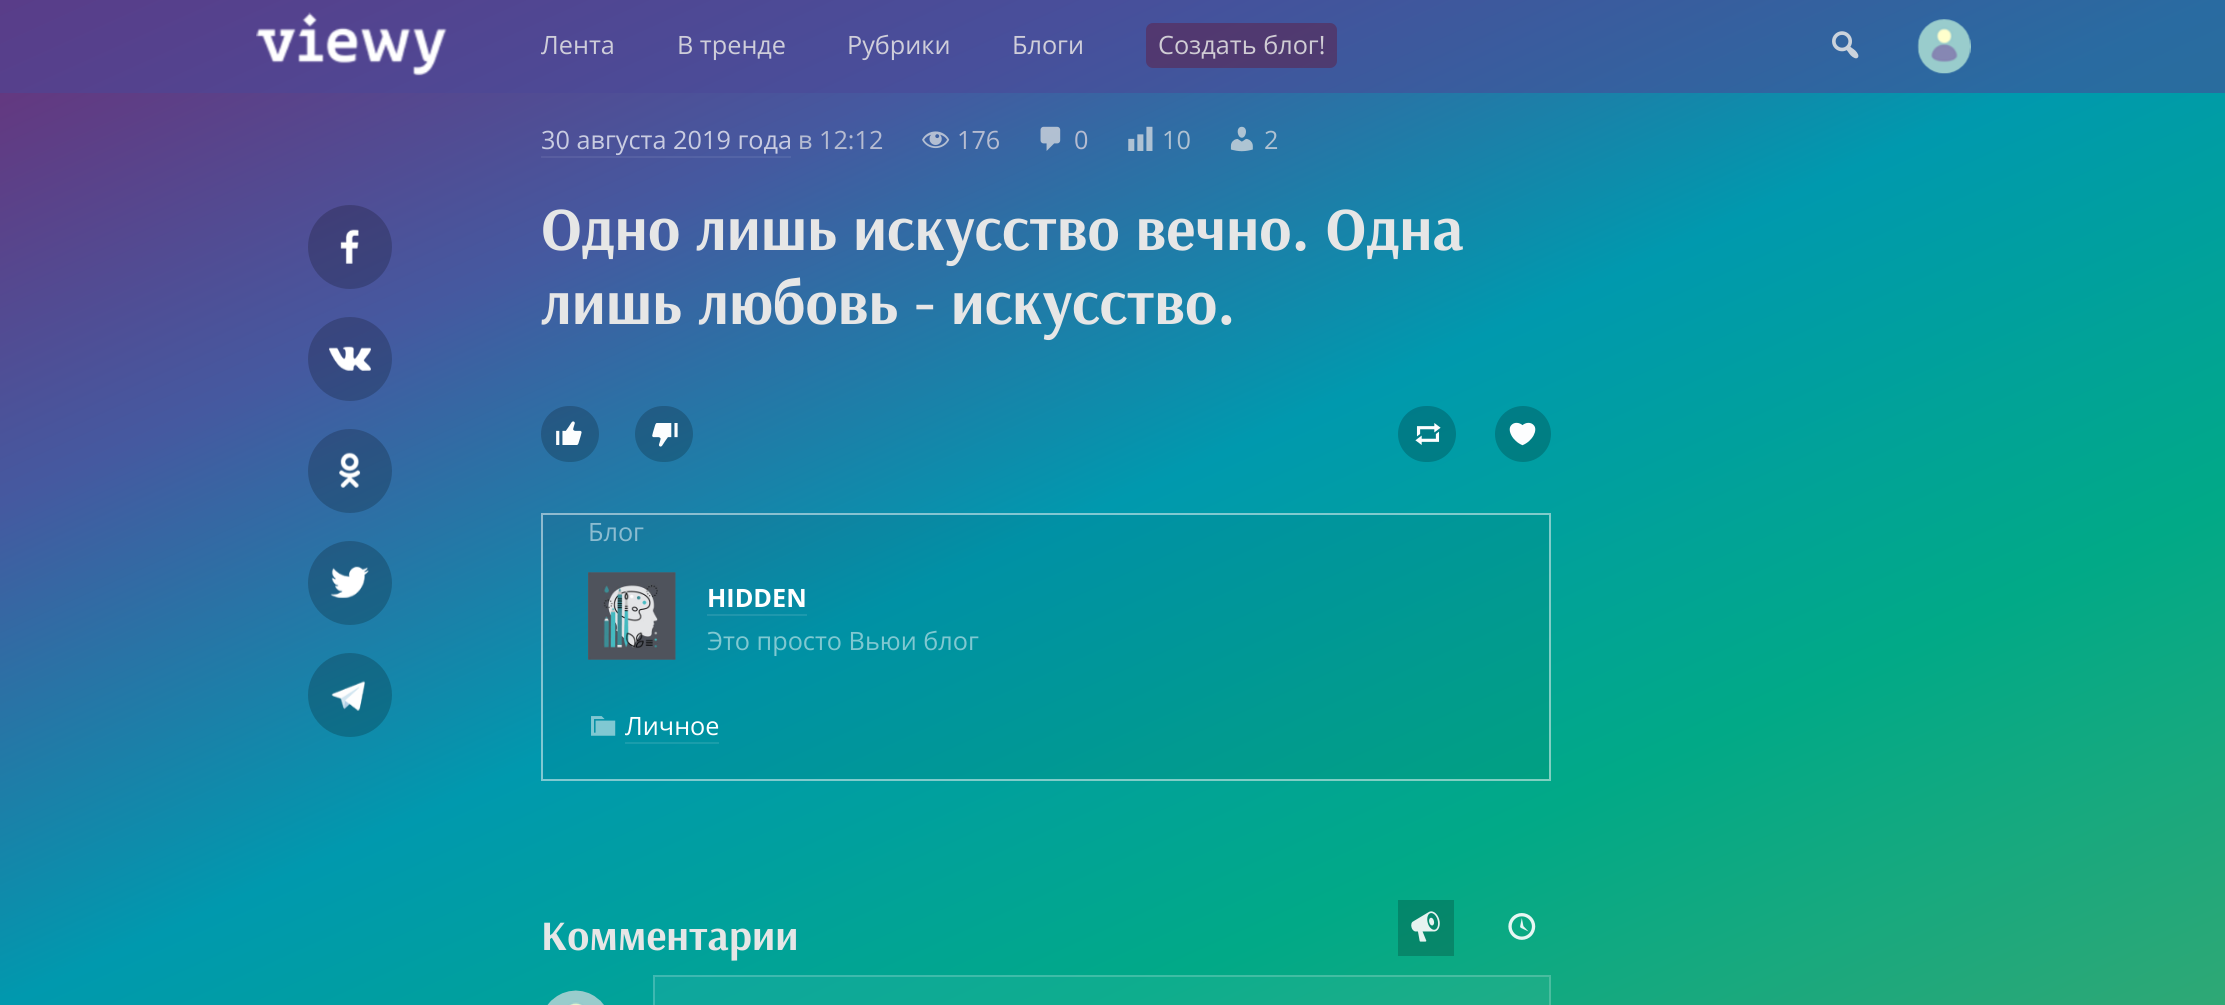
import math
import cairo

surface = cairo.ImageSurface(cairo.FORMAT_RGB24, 2225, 1005)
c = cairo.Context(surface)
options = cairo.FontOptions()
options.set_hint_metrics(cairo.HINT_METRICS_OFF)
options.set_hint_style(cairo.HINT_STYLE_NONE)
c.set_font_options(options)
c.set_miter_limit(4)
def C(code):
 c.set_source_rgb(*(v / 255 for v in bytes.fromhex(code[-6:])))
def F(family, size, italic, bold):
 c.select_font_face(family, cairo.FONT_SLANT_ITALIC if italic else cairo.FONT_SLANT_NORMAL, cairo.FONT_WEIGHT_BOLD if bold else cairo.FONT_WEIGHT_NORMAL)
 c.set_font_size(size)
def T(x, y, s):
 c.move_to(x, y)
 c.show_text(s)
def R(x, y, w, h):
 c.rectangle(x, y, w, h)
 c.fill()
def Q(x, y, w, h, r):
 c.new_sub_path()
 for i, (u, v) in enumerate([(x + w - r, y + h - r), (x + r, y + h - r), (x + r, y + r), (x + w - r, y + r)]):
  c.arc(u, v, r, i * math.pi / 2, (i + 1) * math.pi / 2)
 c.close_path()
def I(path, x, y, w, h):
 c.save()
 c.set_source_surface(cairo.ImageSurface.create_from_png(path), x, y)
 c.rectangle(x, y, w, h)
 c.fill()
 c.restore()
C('ffffff')
c.paint()
gradient = cairo.LinearGradient(735,-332,1491,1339)
gradient.add_color_stop_rgba(0,0.416,0.192,0.475,1)
gradient.add_color_stop_rgba(.25,0.271,0.349,0.627,1)
gradient.add_color_stop_rgba(.5,0,0.6,0.682,1)
gradient.add_color_stop_rgba(.75,0.004,0.663,0.529,1)
gradient.add_color_stop_rgba(1,0.184,0.659,0.459,1)
c.set_source(gradient)
R(0,93,2225,912)
gradient = cairo.LinearGradient(735,-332,1491,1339)
gradient.add_color_stop_rgba(0,0.349,0.239,0.537,1)
gradient.add_color_stop_rgba(.25,0.282,0.31,0.608,1)
gradient.add_color_stop_rgba(.5,0.161,0.42,0.631,1)
gradient.add_color_stop_rgba(.75,0.165,0.451,0.561,1)
gradient.add_color_stop_rgba(1,0.243,0.447,0.529,1)
c.set_source(gradient)
R(0,0,2225,93)
gradient = cairo.LinearGradient(735,-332,1491,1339)
gradient.add_color_stop_rgba(0,0.443,0.231,0.502,1)
gradient.add_color_stop_rgba(.25,0.306,0.38,0.647,1)
gradient.add_color_stop_rgba(.5,0.051,0.62,0.698,1)
gradient.add_color_stop_rgba(.75,0.055,0.678,0.553,1)
gradient.add_color_stop_rgba(1,0.224,0.675,0.486,1)
c.set_source(gradient)
R(653,975,898,30)
gradient = cairo.LinearGradient(735,-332,1491,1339)
gradient.add_color_stop_rgba(0,0.455,0.247,0.51,1)
gradient.add_color_stop_rgba(.25,0.322,0.396,0.655,1)
gradient.add_color_stop_rgba(.5,0.071,0.627,0.706,1)
gradient.add_color_stop_rgba(.75,0.075,0.686,0.561,1)
gradient.add_color_stop_rgba(1,0.243,0.682,0.498,1)
c.set_source(gradient)
R(541,156,250,2)
gradient = cairo.LinearGradient(735,-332,1491,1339)
gradient.add_color_stop_rgba(0,0.333,0.153,0.38,1)
gradient.add_color_stop_rgba(.25,0.216,0.278,0.502,1)
gradient.add_color_stop_rgba(.5,0,0.478,0.545,1)
gradient.add_color_stop_rgba(.75,0.004,0.529,0.424,1)
gradient.add_color_stop_rgba(1,0.149,0.525,0.369,1)
c.set_source(gradient)
R(1398,900,56,56)
gradient = cairo.LinearGradient(735,-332,1491,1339)
gradient.add_color_stop_rgba(0,0.396,0.184,0.451,1)
gradient.add_color_stop_rgba(.25,0.259,0.333,0.596,1)
gradient.add_color_stop_rgba(.5,0,0.569,0.647,1)
gradient.add_color_stop_rgba(.75,0.004,0.631,0.502,1)
gradient.add_color_stop_rgba(1,0.176,0.627,0.435,1)
c.set_source(gradient)
R(541,513,1010,268)
gradient = cairo.LinearGradient(735,-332,1491,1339)
gradient.add_color_stop_rgba(0,0.455,0.267,0.506,1)
gradient.add_color_stop_rgba(.25,0.333,0.4,0.635,1)
gradient.add_color_stop_rgba(.5,0.102,0.612,0.682,1)
gradient.add_color_stop_rgba(.75,0.102,0.667,0.553,1)
gradient.add_color_stop_rgba(1,0.259,0.667,0.49,1)
c.set_source(gradient)
R(625,742,94,2)
R(707,614,100,2)
I('1.png',256,12,191,64)
F('Open Sans',25.25,0,0)
C('cfceda')
T(541,54,'Лента')
T(677,54,'В тренде')
T(847,54,'Рубрики')
T(1012,54,'Блоги')
c.set_source_rgba(0.392,0.078,0.196,0.42)
Q(1146,23,191,45,7)
c.fill()
C('d0ccd4')
T(1158,54,'Создать блог!')
I('2.png',1832,31,27,28)
I('3.png',1917,19,54,55)
c.set_source_rgba(0,0,0,0.2)
c.arc(350,247,42,0,2 * math.pi)
c.fill()
I('4.png',340,229,19,35)
c.arc(350,359,42,0,2 * math.pi)
c.fill()
I('5.png',329,346,42,25)
c.arc(350,471,42,0,2 * math.pi)
c.fill()
I('6.png',339,452,22,36)
c.arc(350,583,42,0,2 * math.pi)
c.fill()
I('7.png',330,566,39,33)
c.arc(350,695,42,0,2 * math.pi)
c.fill()
I('8.png',331,680,35,31)
C('c9cce1')
T(541,149,'30 августа 2019 года')
C('b6bcd1')
T(798,149,'в')
T(819,149,'12:12')
I('9.png',922,131,28,18)
T(957,149,'176')
I('10.png',1040,126,21,25)
T(1074,149,'0')
I('11.png',1128,126,25,25)
C('afc2d2')
T(1162,149,'10')
I('12.png',1230,126,23,26)
T(1264,149,'2')
F('Arsenal',61.6,0,1)
C('e6e6e6')
T(541,250,'Одно лишь искусство вечно. Одна')
T(541,324,'лишь любовь - искусство.')
c.set_source_rgba(0,0,0,0.2)
Q(541,406,58,56,28)
c.fill()
I('13.png',556,421,26,24)
Q(635,406,58,56,28)
c.fill()
I('14.png',652,423,26,24)
Q(1398,406,58,56,28)
c.fill()
I('15.png',1415,423,26,22)
c.arc(1523,434,28,0,2 * math.pi)
c.fill()
I('16.png',1509,422,27,24)
c.rectangle(542,514,1008,266)
c.set_source_rgba(1,1,1,0.5)
c.stroke()
F('Open Sans',25.25,0,0)
C('8cbcd0')
T(588,541,'Блог')
I('17.png',588,572,88,88)
F('Open Sans',25.25,0,1)
C('ffffff')
T(707,607,'HIDDEN')
F('Open Sans',25.25,0,0)
C('80c8d1')
T(707,650,'Это просто Вьюи блог')
I('18.png',591,716,25,20)
C('ffffff')
T(625,735,'Личное')
F('Arsenal',42,0,1)
C('e6e6e6')
T(541,950,'Комментарии')
I('19.png',1411,911,29,31)
I('20.png',1508,913,28,27)
I('21.png',547,990,57,15)
c.rectangle(654,976,896,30)
c.set_source_rgba(1,1,1,0.2)
c.stroke()
surface.write_to_png('o.png')
